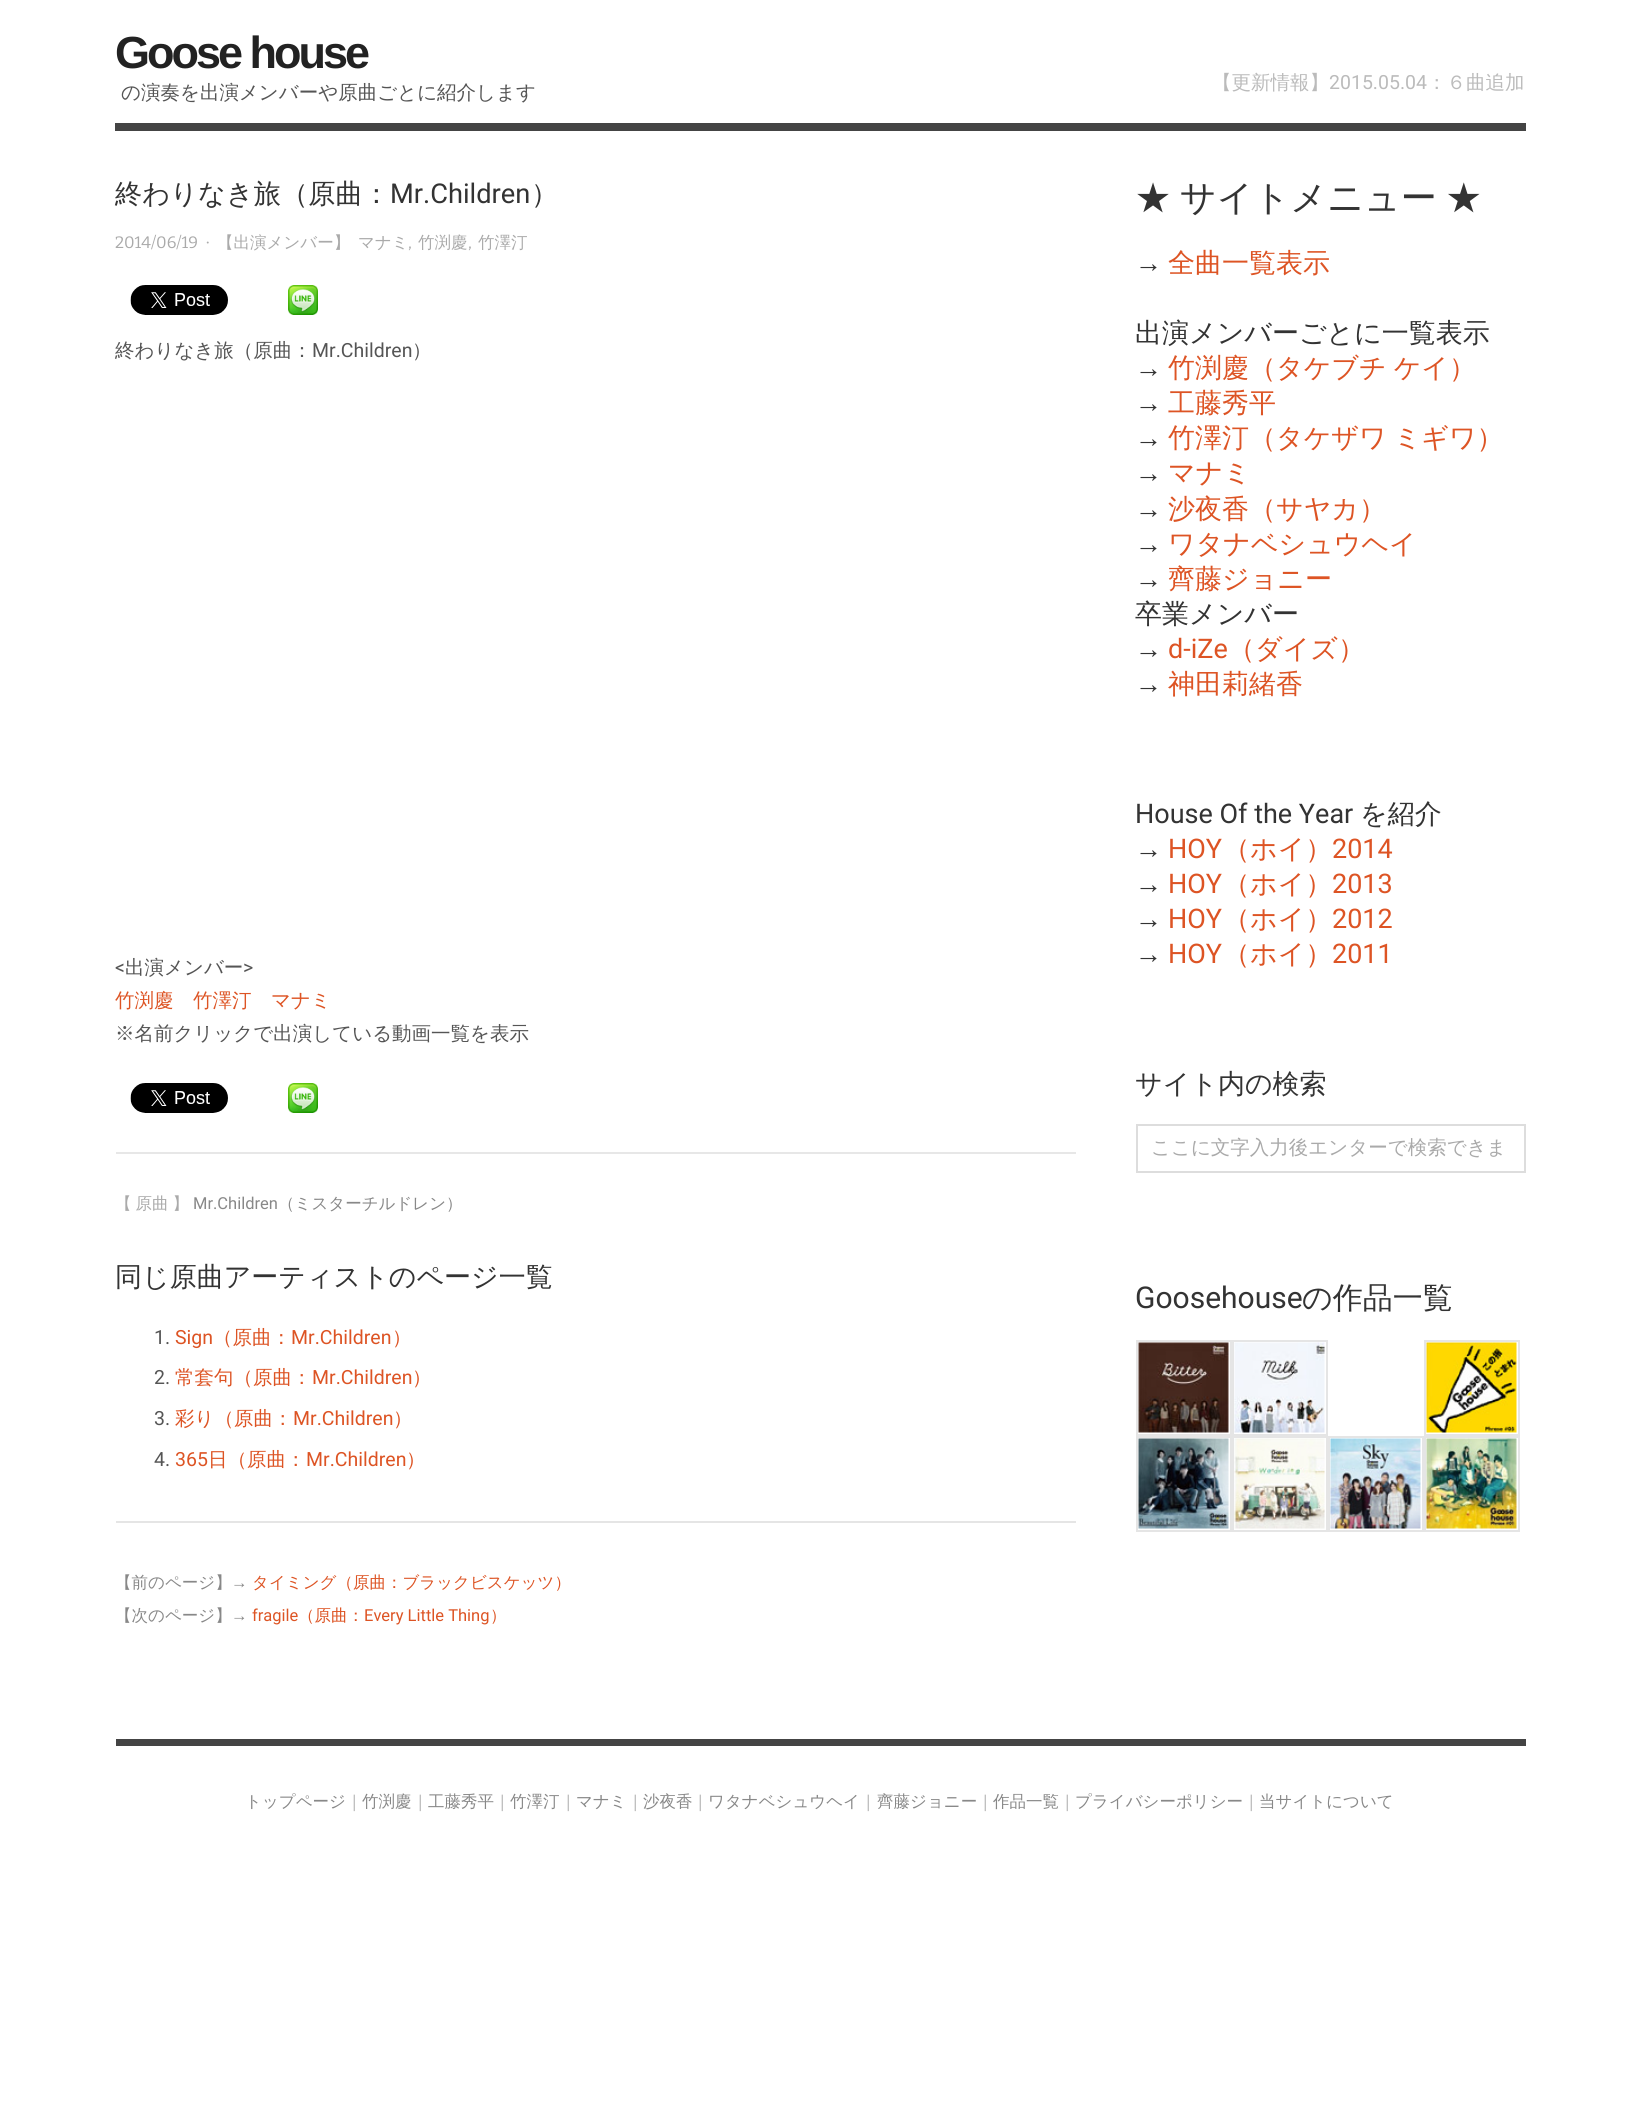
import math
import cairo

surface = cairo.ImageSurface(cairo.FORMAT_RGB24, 1639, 2126)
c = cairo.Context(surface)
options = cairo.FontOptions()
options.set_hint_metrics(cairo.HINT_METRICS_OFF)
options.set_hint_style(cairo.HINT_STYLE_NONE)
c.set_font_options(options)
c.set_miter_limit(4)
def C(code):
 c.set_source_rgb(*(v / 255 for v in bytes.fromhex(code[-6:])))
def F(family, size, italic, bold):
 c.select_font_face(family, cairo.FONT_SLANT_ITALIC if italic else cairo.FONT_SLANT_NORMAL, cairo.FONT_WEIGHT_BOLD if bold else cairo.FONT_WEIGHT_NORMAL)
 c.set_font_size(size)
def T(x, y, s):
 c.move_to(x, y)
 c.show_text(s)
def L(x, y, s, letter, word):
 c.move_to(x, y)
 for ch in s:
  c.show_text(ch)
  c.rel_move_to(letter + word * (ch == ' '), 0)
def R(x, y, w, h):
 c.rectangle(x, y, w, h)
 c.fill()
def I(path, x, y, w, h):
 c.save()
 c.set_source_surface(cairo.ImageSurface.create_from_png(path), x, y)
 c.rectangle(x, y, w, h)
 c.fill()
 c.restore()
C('ffffff')
c.paint()
F('Liberation Sans',45,0,1)
C('222222')
L(115,68,'Goose house',-3,0)
F('WenQuanYi Zen Hei Medium',19.5,0,0)
C('555555')
T(121,99,'の演奏を出演メンバーや原曲ごとに紹介します')
C('bbbbbb')
T(1212,89,'【更新情報】')
F('Roboto',19.5,0,0)
T(1329,89,'2015.05.04')
F('WenQuanYi Zen Hei Medium',19.5,0,0)
T(1427,89,'：６曲追加')
C('444444')
R(115,123,1411,8)
C('e5e5e5')
R(116,1521,960,2)
F('WenQuanYi Zen Hei Medium',27.25,0,0)
C('333333')
T(115,203,'終わりなき旅（原曲：')
F('Roboto',27.25,0,0)
T(390,203,'Mr.Children')
F('WenQuanYi Zen Hei Medium',27.25,0,0)
T(531,203,'）')
F('Bitter Thin',16.5,0,0)
C('aaaaaa')
T(115,248,'2014/06/19')
F('Liberation Serif',16.5,0,0)
T(205,248,'·')
F('WenQuanYi Zen Hei Medium',16.5,0,0)
T(217,248,'【出演メンバー】')
T(358,248,'マナミ')
T(418,248,'竹渕慶')
T(478,248,'竹澤汀')
F('Bitter Thin',16.5,0,0)
T(408,248,',')
T(468,248,',')
I('1.png',130,285,98,30)
I('2.png',288,285,30,30)
F('WenQuanYi Zen Hei Medium',19.5,0,0)
C('555555')
T(115,357,'終わりなき旅（原曲：')
F('Roboto',19.5,0,0)
T(312,357,'Mr.Children')
F('WenQuanYi Zen Hei Medium',19.5,0,0)
T(412,357,'）')
F('Roboto',19.5,0,0)
T(115,974,'<')
F('WenQuanYi Zen Hei Medium',19.5,0,0)
T(125,974,'出演メンバー')
F('Roboto',19.5,0,0)
T(243,974,'>')
F('WenQuanYi Zen Hei Medium',19.5,0,0)
C('dd5424')
T(115,1007,'竹渕慶')
T(193,1007,'竹澤汀')
T(271,1007,'マナミ')
C('555555')
T(115,1040,'※名前クリックで出演している動画一覧を表示')
I('1.png',130,1083,98,30)
I('2.png',288,1083,30,30)
C('e7e7e7')
R(116,1152,960,2)
F('WenQuanYi Zen Hei Medium',16.5,0,0)
C('aaaaaa')
L(115,1209,'【 原曲 】',0,-1)
F('Roboto',16.5,0,0)
C('888888')
T(193,1209,'Mr.Children')
F('WenQuanYi Zen Hei Medium',16.5,0,0)
T(278,1209,'（ミスターチルドレン）')
F('WenQuanYi Zen Hei Medium',27,0,0)
C('333333')
T(115,1286,'同じ原曲アーティストのページ一覧')
F('Roboto',19.5,0,0)
C('555555')
T(154,1344,'1.')
C('dd5424')
T(175,1344,'Sign')
F('WenQuanYi Zen Hei Medium',19.5,0,0)
T(213,1344,'（原曲：')
F('Roboto',19.5,0,0)
T(291,1344,'Mr.Children')
F('WenQuanYi Zen Hei Medium',19.5,0,0)
T(392,1344,'）')
F('Roboto',19.5,0,0)
C('555555')
T(154,1384,'2.')
F('WenQuanYi Zen Hei Medium',19.5,0,0)
C('dd5424')
T(175,1384,'常套句（原曲：')
F('Roboto',19.5,0,0)
T(312,1384,'Mr.Children')
F('WenQuanYi Zen Hei Medium',19.5,0,0)
T(412,1384,'）')
F('Roboto',19.5,0,0)
C('555555')
T(154,1425,'3.')
F('WenQuanYi Zen Hei Medium',19.5,0,0)
C('dd5424')
T(175,1425,'彩り（原曲：')
F('Roboto',19.5,0,0)
T(293,1425,'Mr.Children')
F('WenQuanYi Zen Hei Medium',19.5,0,0)
T(393,1425,'）')
F('Roboto',19.5,0,0)
C('555555')
T(154,1466,'4.')
C('dd5424')
T(175,1466,'365')
F('WenQuanYi Zen Hei Medium',19.5,0,0)
T(208,1466,'日（原曲：')
F('Roboto',19.5,0,0)
T(306,1466,'Mr.Children')
F('WenQuanYi Zen Hei Medium',19.5,0,0)
T(406,1466,'）')
F('WenQuanYi Zen Hei Medium',16.5,0,0)
C('888888')
T(115,1588,'【前のページ】')
F('Liberation Sans',16.5,0,0)
T(231,1588,'→')
F('WenQuanYi Zen Hei Medium',16.5,0,0)
C('dd5424')
T(252,1588,'タイミング（原曲：ブラックビスケッツ）')
C('888888')
T(115,1621,'【次のページ】')
F('Liberation Sans',16.5,0,0)
T(231,1621,'→')
F('Roboto',16.5,0,0)
C('dd5424')
T(252,1621,'fragile')
F('WenQuanYi Zen Hei Medium',16.5,0,0)
T(298,1621,'（原曲：')
F('Roboto',16.5,0,0)
T(364,1621,'Every Little Thing')
F('WenQuanYi Zen Hei Medium',16.5,0,0)
T(490,1621,'）')
F('WenQuanYi Zen Hei Medium',36,0,0)
C('333333')
L(1135,210,'★ サイトメニュー ★',0,-2)
F('Liberation Sans',27,0,0)
T(1135,272,'→')
F('WenQuanYi Zen Hei Medium',27,0,0)
C('dd5424')
T(1168,272,'全曲一覧表示')
C('333333')
T(1135,342,'出演メンバーごとに一覧表示')
F('Liberation Sans',27,0,0)
T(1135,377,'→')
F('WenQuanYi Zen Hei Medium',27,0,0)
C('dd5424')
L(1168,377,'竹渕慶（タケブチ ケイ）',0,-1)
F('Liberation Sans',27,0,0)
C('333333')
T(1135,412,'→')
F('WenQuanYi Zen Hei Medium',27,0,0)
C('dd5424')
T(1168,412,'工藤秀平')
F('Liberation Sans',27,0,0)
C('333333')
T(1135,447,'→')
F('WenQuanYi Zen Hei Medium',27,0,0)
C('dd5424')
L(1168,447,'竹澤汀（タケザワ ミギワ）',0,-1)
F('Liberation Sans',27,0,0)
C('333333')
T(1135,482,'→')
F('WenQuanYi Zen Hei Medium',27,0,0)
C('dd5424')
T(1168,482,'マナミ')
F('Liberation Sans',27,0,0)
C('333333')
T(1135,518,'→')
F('WenQuanYi Zen Hei Medium',27,0,0)
C('dd5424')
T(1168,518,'沙夜香（サヤカ）')
F('Liberation Sans',27,0,0)
C('333333')
T(1135,553,'→')
F('WenQuanYi Zen Hei Medium',27,0,0)
C('dd5424')
T(1168,553,'ワタナベシュウヘイ')
F('Liberation Sans',27,0,0)
C('333333')
T(1135,588,'→')
F('WenQuanYi Zen Hei Medium',27,0,0)
C('dd5424')
T(1168,588,'齊藤ジョニー')
C('333333')
T(1135,623,'卒業メンバー')
F('Liberation Sans',27,0,0)
T(1135,658,'→')
F('Roboto',27,0,0)
C('dd5424')
T(1168,658,'d-iZe')
F('WenQuanYi Zen Hei Medium',27,0,0)
T(1228,658,'（ダイズ）')
F('Liberation Sans',27,0,0)
C('333333')
T(1135,693,'→')
F('WenQuanYi Zen Hei Medium',27,0,0)
C('dd5424')
T(1168,693,'神田莉緒香')
F('Roboto',27,0,0)
C('333333')
T(1135,823,'House Of the Year')
F('WenQuanYi Zen Hei Medium',27,0,0)
T(1360,823,'を紹介')
F('Liberation Sans',27,0,0)
T(1135,858,'→')
F('Roboto',27,0,0)
C('dd5424')
T(1168,858,'HOY')
F('WenQuanYi Zen Hei Medium',27,0,0)
T(1223,858,'（ホイ）')
F('Roboto',27,0,0)
T(1332,858,'2014')
F('Liberation Sans',27,0,0)
C('333333')
T(1135,893,'→')
F('Roboto',27,0,0)
C('dd5424')
T(1168,893,'HOY')
F('WenQuanYi Zen Hei Medium',27,0,0)
T(1223,893,'（ホイ）')
F('Roboto',27,0,0)
T(1332,893,'2013')
F('Liberation Sans',27,0,0)
C('333333')
T(1135,928,'→')
F('Roboto',27,0,0)
C('dd5424')
T(1168,928,'HOY')
F('WenQuanYi Zen Hei Medium',27,0,0)
T(1223,928,'（ホイ）')
F('Roboto',27,0,0)
T(1332,928,'2012')
F('Liberation Sans',27,0,0)
C('333333')
T(1135,963,'→')
F('Roboto',27,0,0)
C('dd5424')
T(1168,963,'HOY')
F('WenQuanYi Zen Hei Medium',27,0,0)
T(1223,963,'（ホイ）')
F('Roboto',27,0,0)
T(1332,963,'2011')
F('WenQuanYi Zen Hei Medium',27,0,0)
C('333333')
T(1135,1093,'サイト内の検索')
c.rectangle(1137,1125,388,47)
C('dddddd')
c.stroke()
F('WenQuanYi Zen Hei Medium',19.5,0,0)
C('aaaaaa')
T(1151,1154,'ここに文字入力後エンターで検索できま')
F('Roboto',30,0,0)
C('333333')
T(1135,1308,'Goosehouse')
F('WenQuanYi Zen Hei Medium',30,0,0)
T(1302,1308,'の作品一覧')
c.rectangle(1137,1341,94,94)
C('e5e5e5')
c.stroke()
c.rectangle(1233,1341,94,94)
c.stroke()
c.rectangle(1425,1341,94,94)
c.stroke()
I('3.png',1138,1342,91,91)
I('4.png',1234,1342,91,91)
I('5.png',1426,1342,91,91)
c.rectangle(1137,1437,94,94)
c.stroke()
c.rectangle(1233,1437,94,94)
c.stroke()
c.rectangle(1329,1437,94,94)
c.stroke()
c.rectangle(1425,1437,94,94)
c.stroke()
I('6.png',1138,1438,91,91)
I('7.png',1234,1438,91,91)
I('8.png',1330,1438,91,91)
I('9.png',1426,1438,91,91)
C('444444')
R(116,1739,1410,7)
F('WenQuanYi Zen Hei Medium',16.5,0,0)
C('888888')
T(245,1807,'トップページ')
C('aaaaaa')
T(346,1807,'｜')
C('888888')
T(362,1807,'竹渕慶')
C('aaaaaa')
T(412,1807,'｜')
C('888888')
T(428,1807,'工藤秀平')
C('aaaaaa')
T(494,1807,'｜')
C('888888')
T(510,1807,'竹澤汀')
C('aaaaaa')
T(560,1807,'｜')
C('888888')
T(576,1807,'マナミ')
C('aaaaaa')
T(627,1807,'｜')
C('888888')
T(643,1807,'沙夜香')
C('aaaaaa')
T(692,1807,'｜')
C('888888')
T(708,1807,'ワタナベシュウヘイ')
C('aaaaaa')
T(860,1807,'｜')
C('888888')
T(877,1807,'齊藤ジョニー')
C('aaaaaa')
T(977,1807,'｜')
C('888888')
T(993,1807,'作品一覧')
C('aaaaaa')
T(1059,1807,'｜')
C('888888')
T(1075,1807,'プライバシーポリシー')
C('aaaaaa')
T(1243,1807,'｜')
C('888888')
T(1259,1807,'当サイトについて')
surface.write_to_png('o.png')
